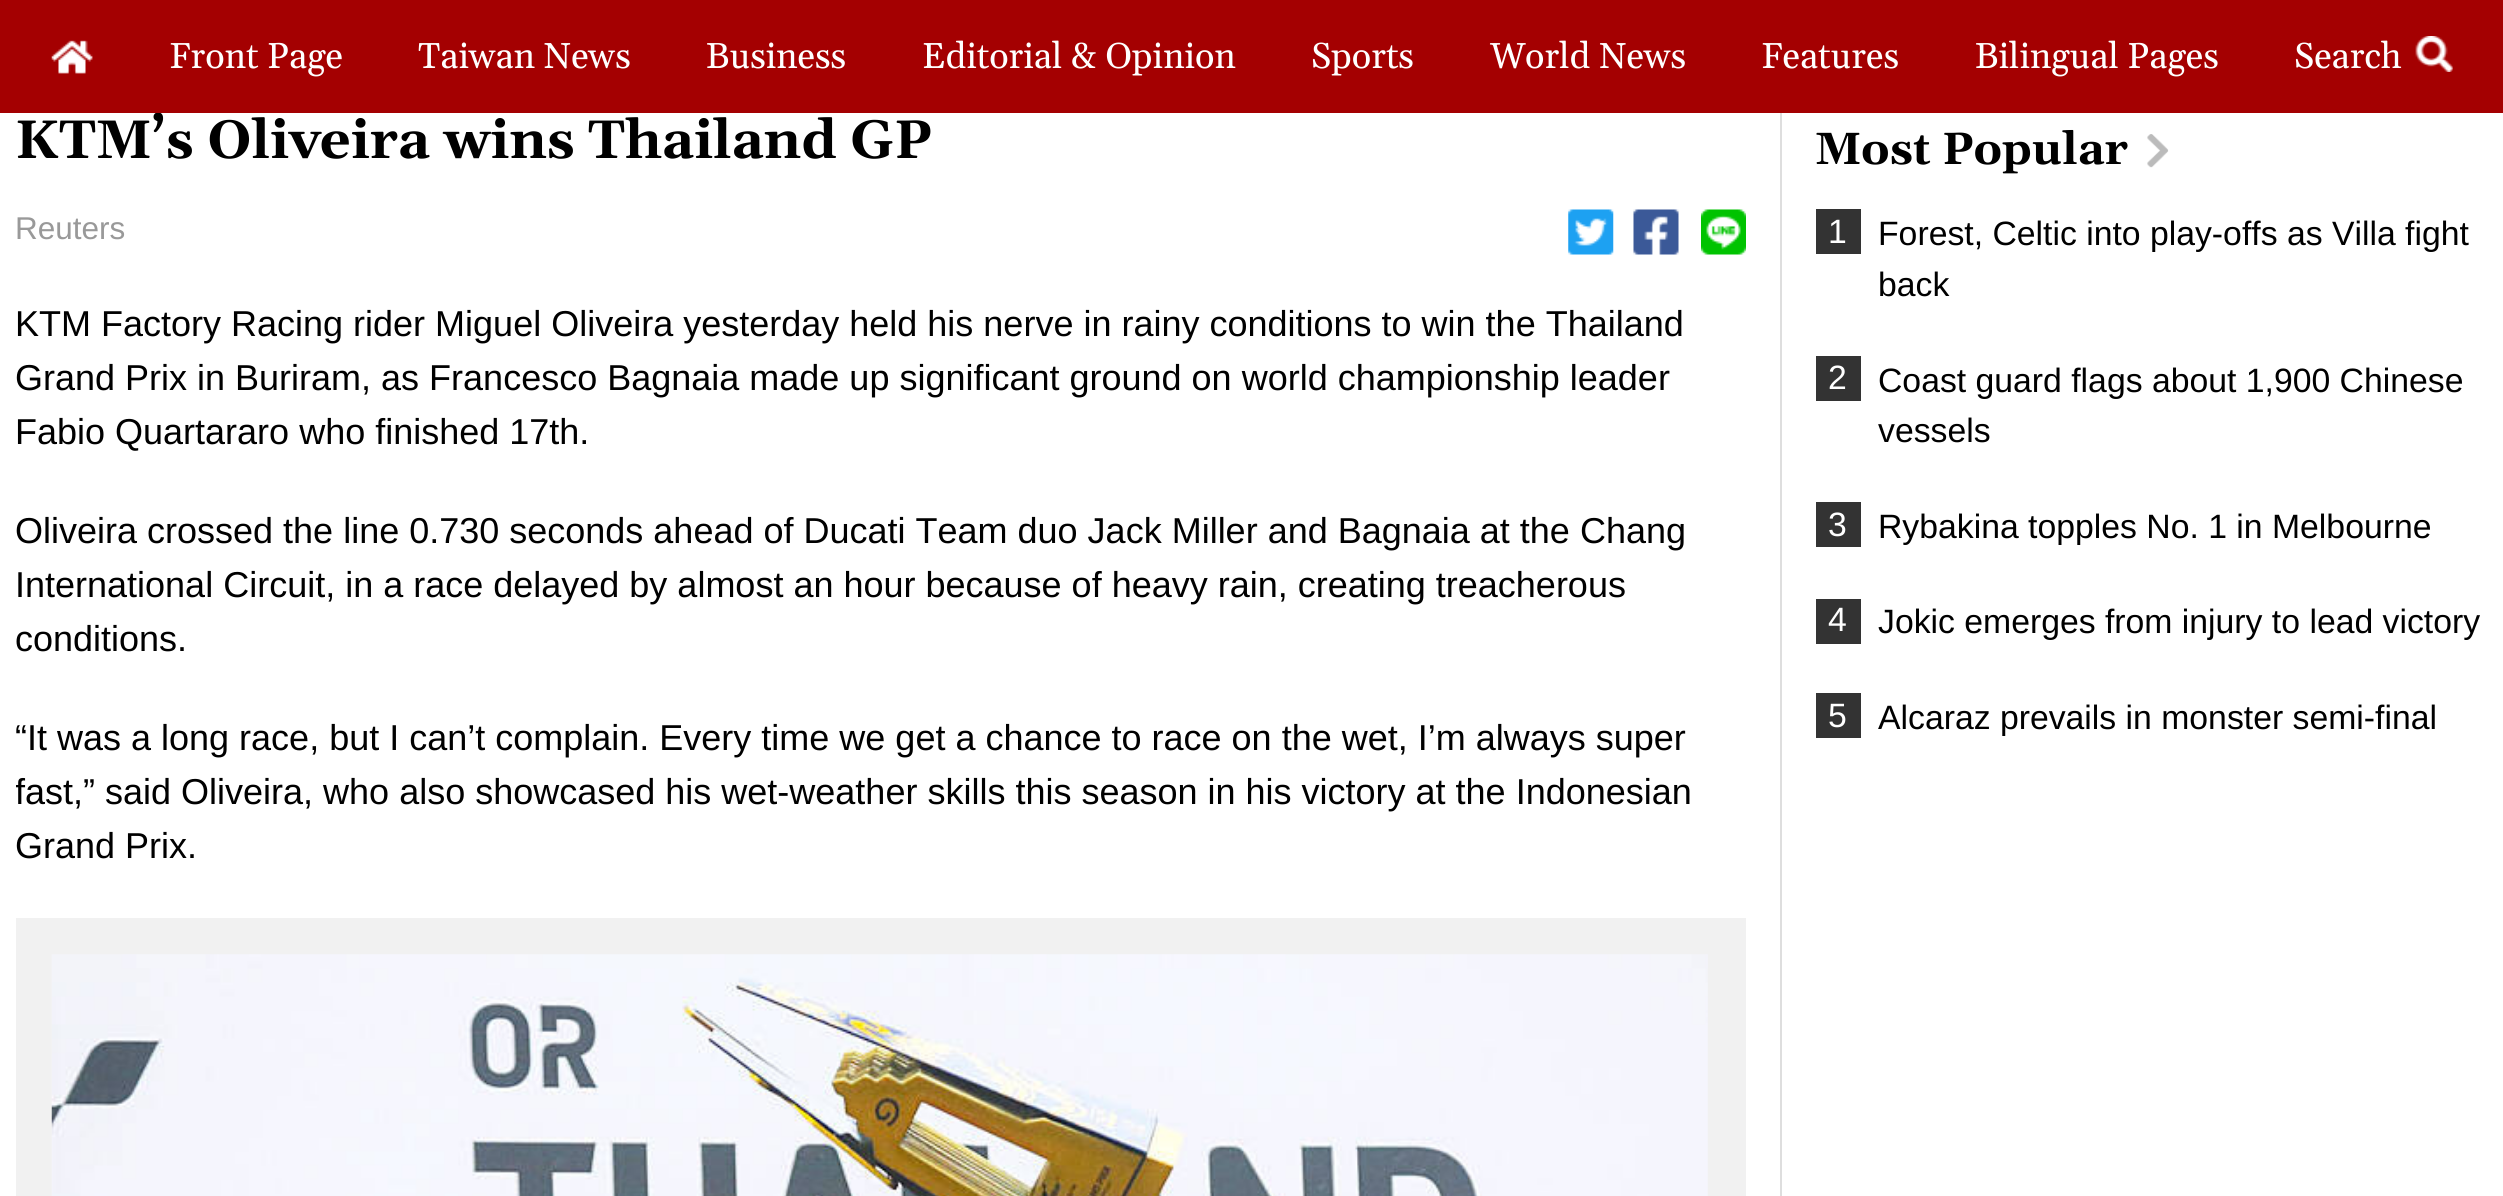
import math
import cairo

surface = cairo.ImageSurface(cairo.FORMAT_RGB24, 2503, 1196)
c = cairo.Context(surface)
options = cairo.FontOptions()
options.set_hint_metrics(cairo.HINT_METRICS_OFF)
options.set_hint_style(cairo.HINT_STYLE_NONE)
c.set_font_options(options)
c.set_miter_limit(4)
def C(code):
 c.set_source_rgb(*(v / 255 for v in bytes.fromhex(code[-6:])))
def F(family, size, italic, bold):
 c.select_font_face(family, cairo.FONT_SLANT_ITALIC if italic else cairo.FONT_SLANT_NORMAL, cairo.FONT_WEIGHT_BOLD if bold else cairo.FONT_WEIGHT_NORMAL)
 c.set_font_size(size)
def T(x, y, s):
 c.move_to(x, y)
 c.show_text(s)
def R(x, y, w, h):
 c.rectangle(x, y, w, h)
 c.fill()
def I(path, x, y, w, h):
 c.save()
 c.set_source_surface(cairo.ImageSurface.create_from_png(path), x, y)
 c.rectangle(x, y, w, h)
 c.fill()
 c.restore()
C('ffffff')
c.paint()
F('Gelasio',54,0,1)
C('000000')
T(15,158,'KTM’s Oliveira wins Thailand GP')
C('a40001')
R(0,0,2503,113)
I('1.png',51,40,42,34)
F('Gelasio',36,0,0)
C('ffffff')
T(169,68,'Front Page')
T(418,68,'Taiwan News')
T(706,68,'Business')
T(922,68,'Editorial & Opinion')
T(1311,68,'Sports')
T(1490,68,'World News')
T(1761,68,'Features')
T(1975,68,'Bilingual Pages')
T(2294,68,'Search')
I('2.png',2415,36,38,36)
C('dedede')
R(1780,113,2,1083)
F('Liberation Sans',31.5,0,0)
C('999999')
T(15,239,'Reuters')
I('3.png',1568,209,46,46)
I('4.png',1633,209,46,46)
I('5.png',1701,209,45,46)
F('Liberation Sans',36,0,0)
C('000000')
T(15,336,'KTM Factory Racing rider Miguel Oliveira yesterday held his nerve in rainy conditions to win the Thailand')
T(15,390,'Grand Prix in Buriram, as Francesco Bagnaia made up significant ground on world championship leader')
T(15,444,'Fabio Quartararo who finished 17th.')
T(15,543,'Oliveira crossed the line 0.730 seconds ahead of Ducati Team duo Jack Miller and Bagnaia at the Chang')
T(15,597,'International Circuit, in a race delayed by almost an hour because of heavy rain, creating treacherous')
T(15,651,'conditions.')
T(15,750,'“It was a long race, but I can’t complain. Every time we get a chance to race on the wet, I’m always super')
c.save()
c.rectangle(16,90,2475,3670)
c.clip()
T(15,804,'fast,” said Oliveira, who also showcased his wet-weather skills this season in his victory at the Indonesian')
c.restore()
T(15,858,'Grand Prix.')
C('f1f1f1')
R(16,918,1730,278)
I('6.png',51,954,1657,242)
F('Gelasio',45,0,1)
C('000000')
T(1815,164,'Most Popular')
I('7.png',2147,134,22,34)
C('333333')
R(1816,209,45,45)
F('Liberation Sans',33.75,0,0)
C('ffffff')
T(1828,243,'1')
C('000000')
T(1878,245,'Forest, Celtic into play-offs as Villa fight')
T(1878,296,'back')
C('333333')
R(1816,356,45,45)
C('ffffff')
T(1828,389,'2')
C('000000')
T(1878,392,'Coast guard flags about 1,900 Chinese')
T(1878,442,'vessels')
C('333333')
R(1816,502,45,45)
C('ffffff')
T(1828,536,'3')
C('000000')
T(1878,538,'Rybakina topples No. 1 in Melbourne')
C('333333')
R(1816,599,45,45)
C('ffffff')
T(1828,631,'4')
C('000000')
T(1878,633,'Jokic emerges from injury to lead victory')
C('333333')
R(1816,693,45,45)
C('ffffff')
T(1828,727,'5')
C('000000')
T(1878,729,'Alcaraz prevails in monster semi-final')
surface.write_to_png('o.png')
